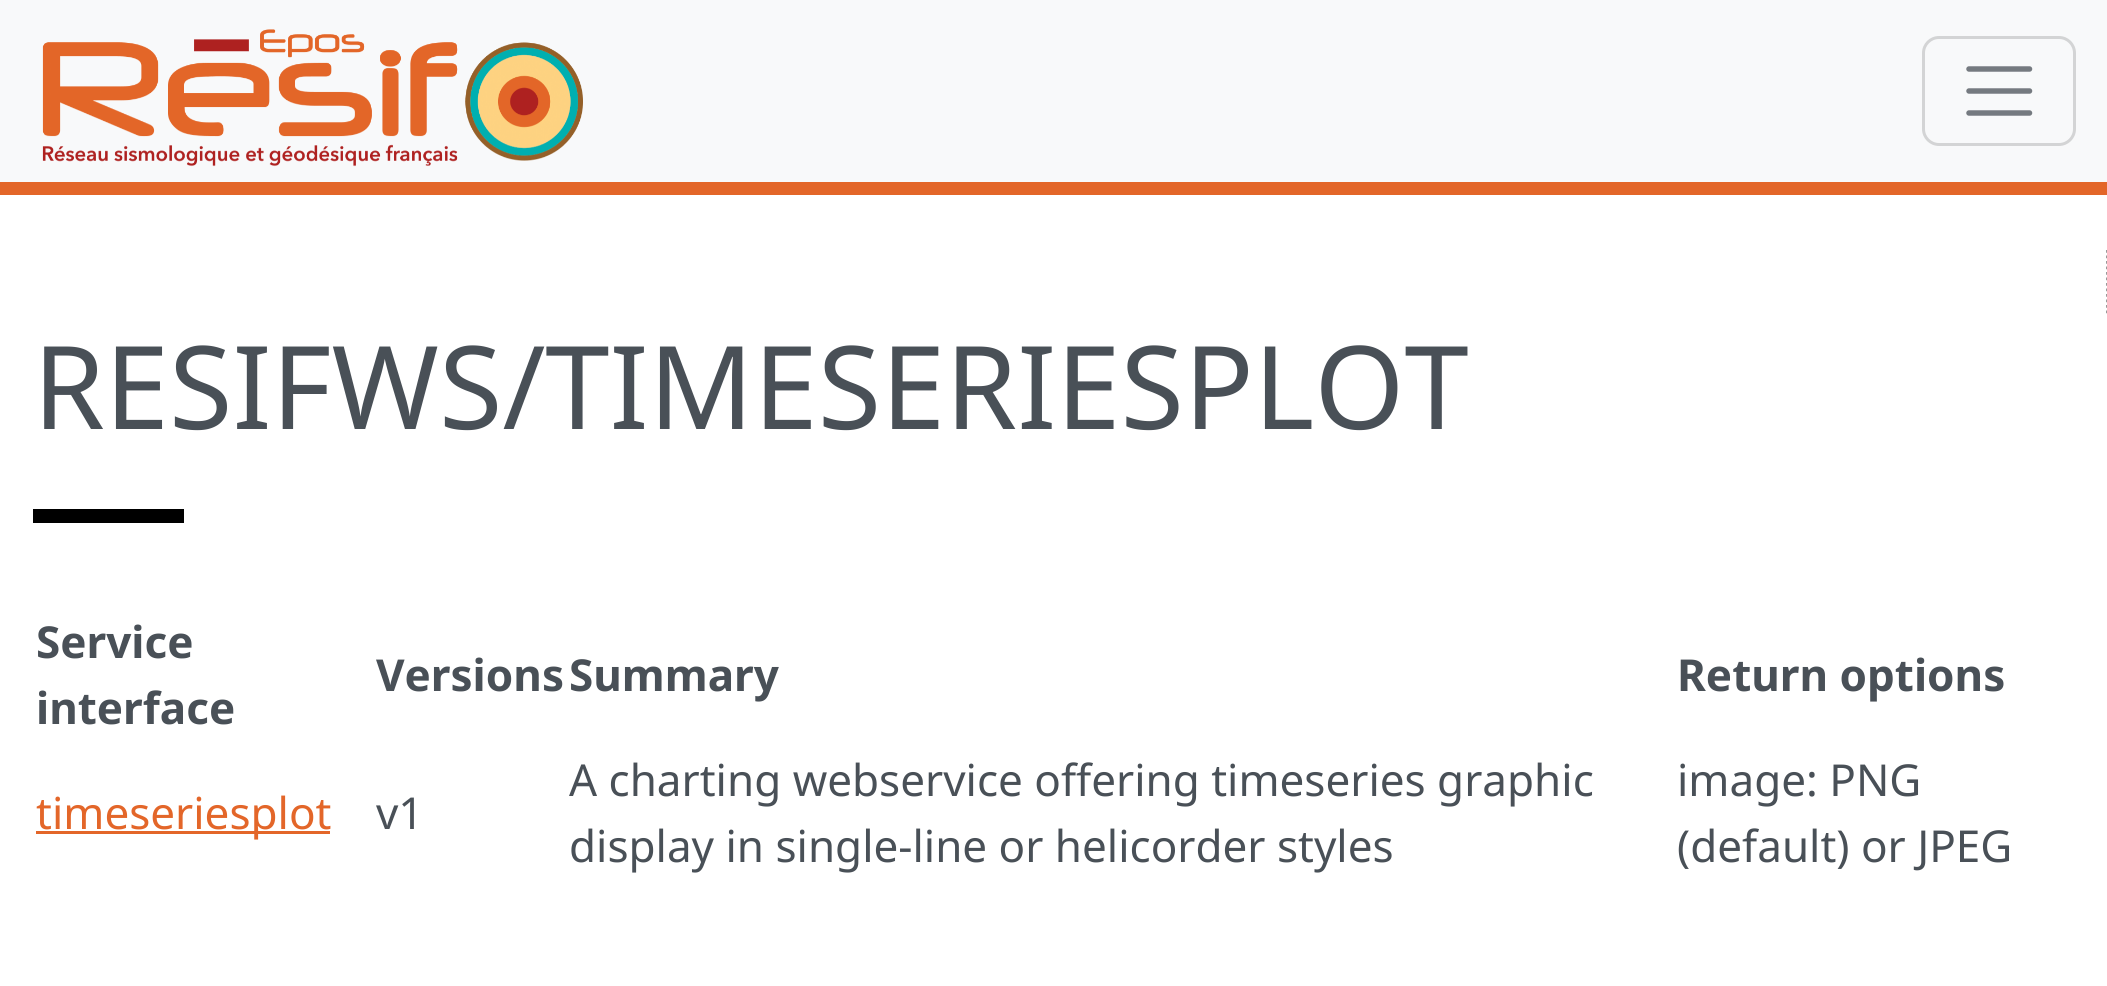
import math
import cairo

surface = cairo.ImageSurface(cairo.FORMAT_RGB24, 2107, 986)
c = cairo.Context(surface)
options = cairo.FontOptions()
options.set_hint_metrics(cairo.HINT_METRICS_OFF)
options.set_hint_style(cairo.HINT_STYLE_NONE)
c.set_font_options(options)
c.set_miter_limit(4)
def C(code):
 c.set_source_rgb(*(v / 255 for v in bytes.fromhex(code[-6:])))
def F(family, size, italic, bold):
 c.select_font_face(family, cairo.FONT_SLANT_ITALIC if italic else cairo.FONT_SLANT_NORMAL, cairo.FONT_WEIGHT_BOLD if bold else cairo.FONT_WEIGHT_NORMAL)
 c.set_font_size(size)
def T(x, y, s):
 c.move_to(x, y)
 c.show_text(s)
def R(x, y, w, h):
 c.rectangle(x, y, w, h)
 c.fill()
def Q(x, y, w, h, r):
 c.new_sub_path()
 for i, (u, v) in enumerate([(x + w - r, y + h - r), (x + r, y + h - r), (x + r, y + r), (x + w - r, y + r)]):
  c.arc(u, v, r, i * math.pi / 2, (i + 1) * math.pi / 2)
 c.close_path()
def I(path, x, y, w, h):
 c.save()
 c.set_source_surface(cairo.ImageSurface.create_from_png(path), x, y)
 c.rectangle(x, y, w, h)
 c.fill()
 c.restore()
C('ffffff')
c.paint()
C('f8f9fa')
R(0,0,2107,182)
C('e36629')
R(0,182,2107,13)
I('1.png',42,29,541,138)
Q(1923.5,37.5,151,107,15.5)
C('d3d4d5')
c.set_line_width(3)
c.stroke()
c.new_path()
c.move_to(1969,69)
c.line_to(2029.5,69)
c.move_to(1969,91)
c.line_to(2029.5,91)
c.move_to(1969,113)
c.line_to(2029.5,113)
C('757a80')
c.set_line_width(5.5)
c.set_line_cap(cairo.LINE_CAP_ROUND)
c.stroke()
c.new_path()
c.move_to(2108,250)
c.line_to(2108,316)
C('000000')
c.set_line_width(2.8)
c.set_line_cap(cairo.LINE_CAP_BUTT)
c.set_dash([2.75,2.75])
c.stroke()
F('Noto Sans',115.5,0,0)
C('495057')
T(33,429,'RESIFWS/TIMESERIESPLOT')
C('000000')
R(33,509,151,14)
F('Noto Sans',44,0,1)
C('495057')
T(36,658,'Service')
T(36,724,'interface')
T(376,691,'Versions')
T(569,691,'Summary')
T(1677,691,'Return options')
C('e36629')
R(36,831,294,3)
F('Noto Sans',44,0,0)
T(36,829,'timeseriesplot')
C('495057')
T(376,829,'v1')
T(569,796,'A charting webservice offering timeseries graphic')
T(569,862,'display in single-line or helicorder styles')
T(1677,796,'image: PNG')
T(1677,862,'(default) or JPEG')
surface.write_to_png('o.png')
